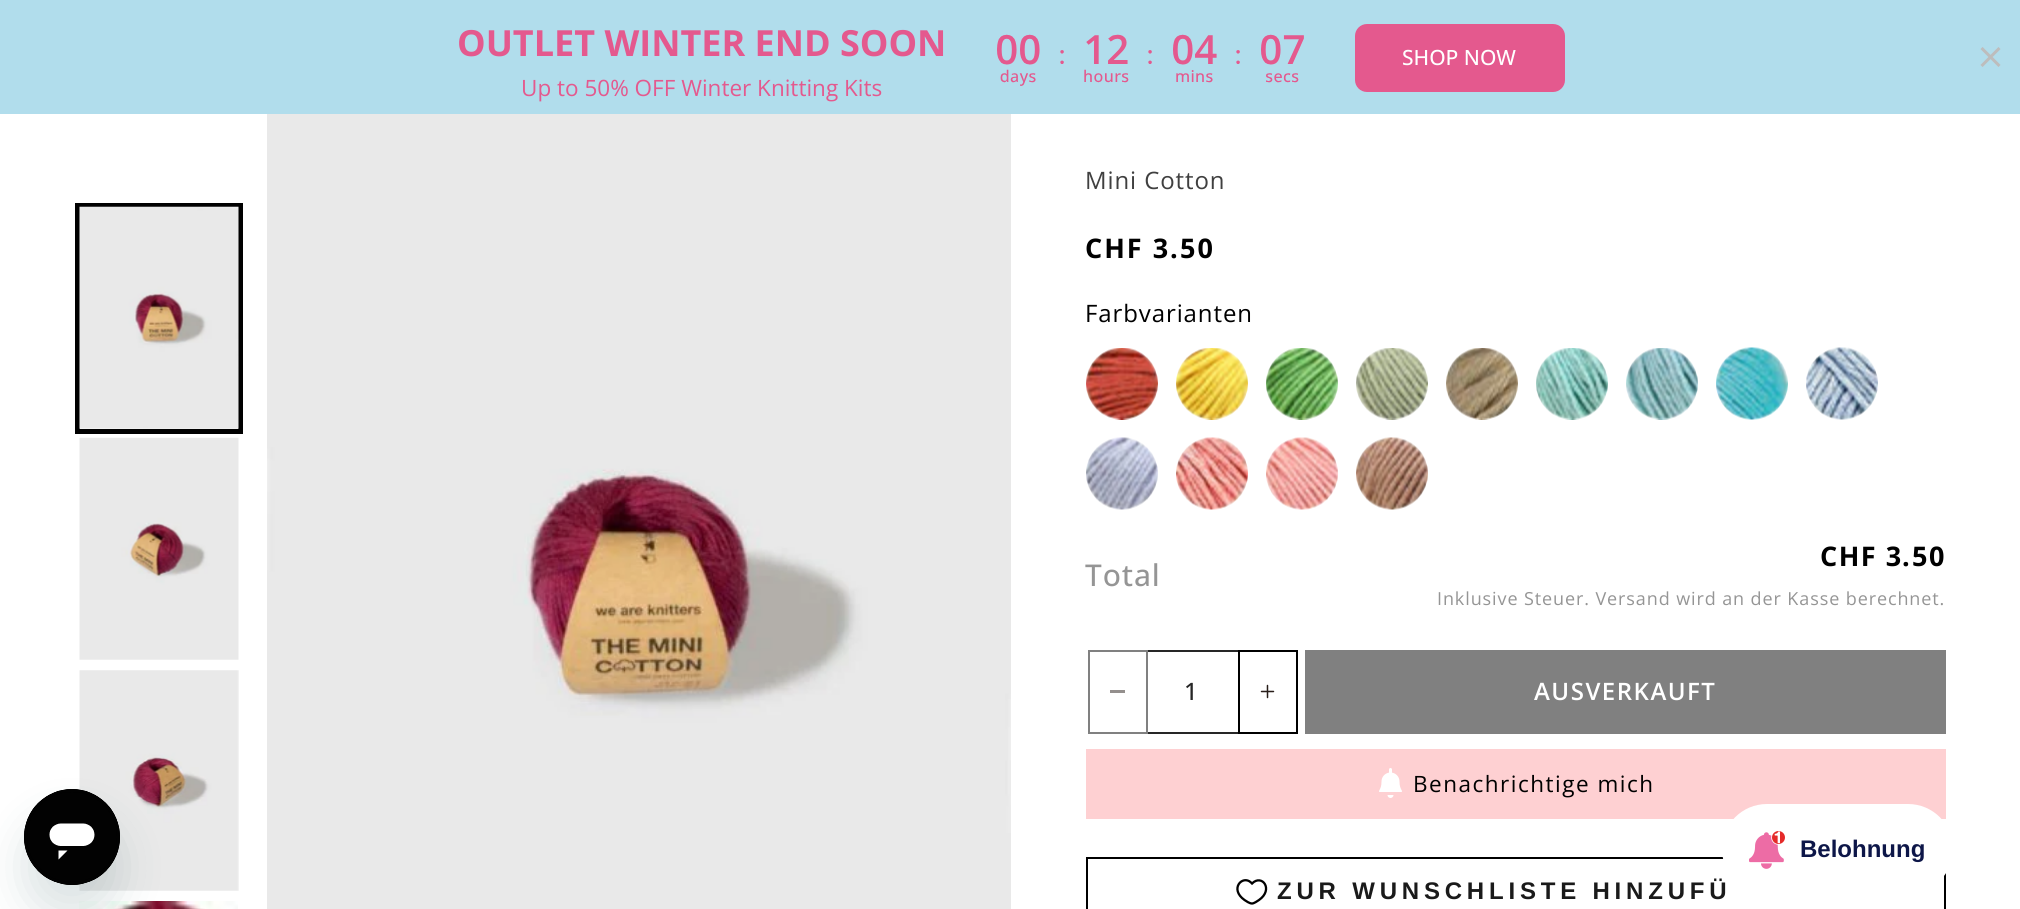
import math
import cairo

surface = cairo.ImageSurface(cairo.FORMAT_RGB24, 2020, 909)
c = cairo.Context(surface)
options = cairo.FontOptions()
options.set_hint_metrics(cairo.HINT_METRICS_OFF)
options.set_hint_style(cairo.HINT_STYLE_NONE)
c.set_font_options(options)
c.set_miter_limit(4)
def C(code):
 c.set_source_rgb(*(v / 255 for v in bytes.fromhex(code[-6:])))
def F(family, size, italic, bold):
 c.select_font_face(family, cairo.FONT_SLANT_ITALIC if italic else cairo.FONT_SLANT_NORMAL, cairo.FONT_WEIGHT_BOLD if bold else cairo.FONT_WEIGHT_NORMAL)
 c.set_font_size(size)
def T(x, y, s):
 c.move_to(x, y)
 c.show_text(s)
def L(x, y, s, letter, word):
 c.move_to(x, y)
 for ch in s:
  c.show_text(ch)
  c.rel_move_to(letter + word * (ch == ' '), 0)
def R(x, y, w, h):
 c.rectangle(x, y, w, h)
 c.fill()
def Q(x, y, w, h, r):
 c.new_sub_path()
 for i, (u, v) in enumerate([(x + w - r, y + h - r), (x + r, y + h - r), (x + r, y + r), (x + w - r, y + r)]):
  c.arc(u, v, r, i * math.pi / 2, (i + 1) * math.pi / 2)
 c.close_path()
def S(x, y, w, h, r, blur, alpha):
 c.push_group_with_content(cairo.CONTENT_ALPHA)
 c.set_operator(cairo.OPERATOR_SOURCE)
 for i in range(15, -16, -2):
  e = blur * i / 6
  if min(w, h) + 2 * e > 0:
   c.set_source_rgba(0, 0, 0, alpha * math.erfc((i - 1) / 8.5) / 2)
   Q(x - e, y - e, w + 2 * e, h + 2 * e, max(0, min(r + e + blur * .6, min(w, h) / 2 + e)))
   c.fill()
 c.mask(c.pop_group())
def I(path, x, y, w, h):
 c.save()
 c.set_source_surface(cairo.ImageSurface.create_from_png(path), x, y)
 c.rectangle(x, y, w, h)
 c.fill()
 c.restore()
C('ffffff')
c.paint()
C('b1ddec')
R(0,0,2020,114)
F('Open Sans',36,0,1)
C('e4598e')
T(457,56,'OUTLET WINTER END SOON')
F('Open Sans',22.5,0,0)
T(521,96,'Up to 50% OFF Winter Knitting Kits')
I('1.png',997,34,307,52)
Q(1355,24,210,68,12)
c.fill()
F('Open Sans Medium',21,0,0)
C('ffffff')
T(1402,65,'SHOP NOW')
c.new_path()
c.move_to(1999.5,48)
c.line_to(1981.5,66)
c.move_to(1999.5,66)
c.line_to(1981.5,48)
C('bdbdbd')
c.set_line_width(3)
c.stroke()
I('5.png',79,670,160,221)
I('6.png',79,901,159,8)
C('17494d')
S(24,819,96,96,48,22.5,.15)
I('2.png',24,789,96,96)
c.rectangle(77.5,205.5,163,226)
C('000000')
c.set_line_width(5)
c.stroke()
I('3.png',79,206,160,223)
I('4.png',79,437,160,223)
I('7.png',267,114,744,795)
F('Open Sans',24,0,0)
C('404040')
L(1085,189,'Mini Cotton',.9,0)
F('Open Sans',27,0,1)
C('000000')
L(1085,258,'CHF 3',2,0)
F('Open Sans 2',27,0,1)
L(1170,258,'.',2,0)
F('Open Sans',27,0,1)
L(1180,258,'50',2,0)
F('Open Sans',24,0,0)
L(1085,322,'Farbvarianten',.9,0)
I('8.png',1086,348,72,72)
I('9.png',1176,348,72,72)
I('10.png',1266,348,72,72)
I('11.png',1356,348,72,72)
I('12.png',1446,348,72,72)
I('13.png',1536,348,72,72)
I('14.png',1626,348,72,72)
I('15.png',1716,347,72,73)
I('16.png',1806,347,72,73)
I('17.png',1086,437,72,73)
I('18.png',1176,437,72,73)
I('19.png',1266,437,72,73)
I('20.png',1356,437,72,73)
F('Open Sans Medium',30,0,0)
C('959595')
L(1085,586,'Total',.9,0)
F('Open Sans',27,0,1)
C('000000')
L(1820,566,'CHF 3',1.5,0)
F('Open Sans 2',27,0,1)
L(1902,566,'.',1.5,0)
F('Open Sans',27,0,1)
L(1912,566,'50',1.5,0)
F('Open Sans',18,0,0)
C('959595')
L(1437,605,'Inklusive Steuer. Versand wird an der Kasse berechnet.',.9,0)
c.rectangle(1089,651,58,82)
C('808080')
c.set_line_width(2)
c.stroke()
C('948f8d')
R(1110,690,15,3)
C('262626')
R(1148,650,90,2)
R(1148,732,90,2)
F('Open Sans Medium',24,0,0)
L(1184,700,'1',.9,0)
c.rectangle(1239,651,58,82)
C('000000')
c.stroke()
I('21.png',1260,684,15,15)
C('808080')
R(1305,650,641,84)
F('Open Sans SemiBold',24,0,0)
C('ffffff')
L(1534,700,'AUSVERKAUFT',1.5,0)
C('fed0d2')
R(1086,749,860,70)
I('22.png',1379,768,23,30)
F('Open Sans',22.5,0,0)
C('000000')
L(1413,792,'Benachrichtige mich',1.5,0)
c.rectangle(1087,858,858,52)
c.stroke()
c.new_path()
c.move_to(1251,882.5)
c.line_to(1252,883.5)
c.curve_to(1262,873.5,1274,889.5,1259,900)
c.curve_to(1257.5,901,1254,903.5,1252,903.5)
c.curve_to(1249.5,903.5,1246,901,1244.5,900)
c.curve_to(1229,889,1242.5,874.5,1251,882.5)
c.close_path()
c.set_line_width(2.3)
c.stroke()
F('Liberation Sans',24,0,1)
C('1a1a1a')
L(1277,899,'ZUR WUNSCHLISTE HINZUFÜ',4.8,0)
C('ffffff')
Q(1722,804,231,90,45)
c.fill()
I('23.png',1749,831,36,38)
C('0d1648')
T(1800,857,'Belohnung')
surface.write_to_png('o.png')
